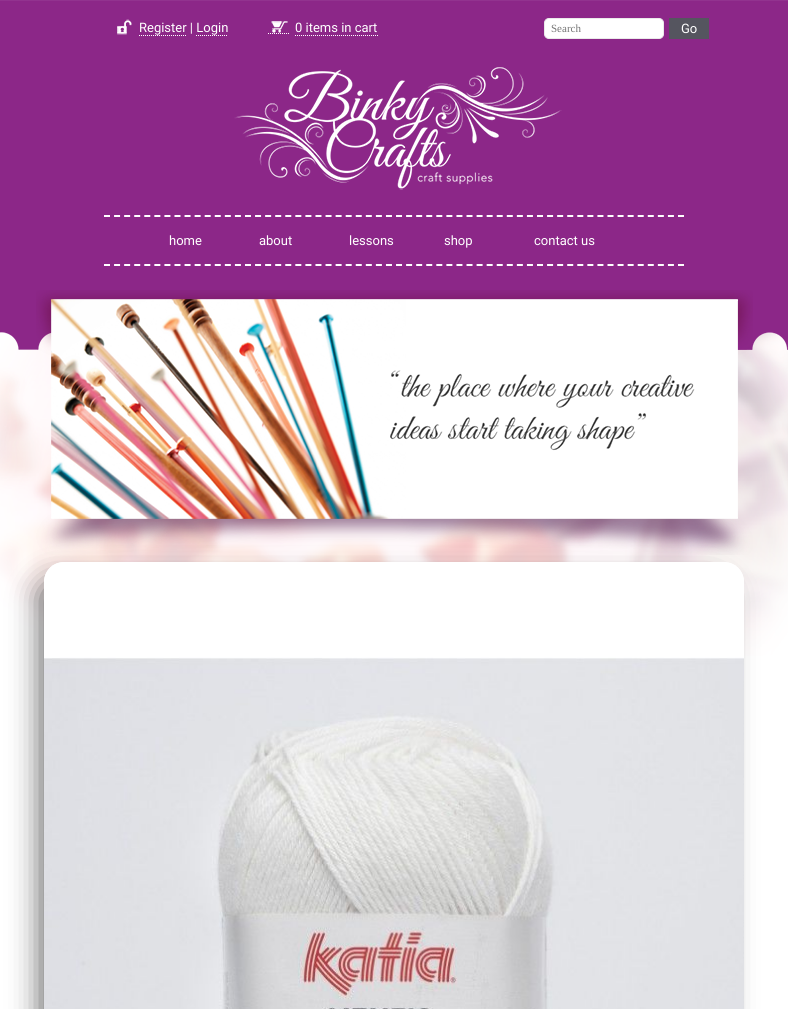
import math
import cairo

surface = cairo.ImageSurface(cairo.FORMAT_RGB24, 788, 1009)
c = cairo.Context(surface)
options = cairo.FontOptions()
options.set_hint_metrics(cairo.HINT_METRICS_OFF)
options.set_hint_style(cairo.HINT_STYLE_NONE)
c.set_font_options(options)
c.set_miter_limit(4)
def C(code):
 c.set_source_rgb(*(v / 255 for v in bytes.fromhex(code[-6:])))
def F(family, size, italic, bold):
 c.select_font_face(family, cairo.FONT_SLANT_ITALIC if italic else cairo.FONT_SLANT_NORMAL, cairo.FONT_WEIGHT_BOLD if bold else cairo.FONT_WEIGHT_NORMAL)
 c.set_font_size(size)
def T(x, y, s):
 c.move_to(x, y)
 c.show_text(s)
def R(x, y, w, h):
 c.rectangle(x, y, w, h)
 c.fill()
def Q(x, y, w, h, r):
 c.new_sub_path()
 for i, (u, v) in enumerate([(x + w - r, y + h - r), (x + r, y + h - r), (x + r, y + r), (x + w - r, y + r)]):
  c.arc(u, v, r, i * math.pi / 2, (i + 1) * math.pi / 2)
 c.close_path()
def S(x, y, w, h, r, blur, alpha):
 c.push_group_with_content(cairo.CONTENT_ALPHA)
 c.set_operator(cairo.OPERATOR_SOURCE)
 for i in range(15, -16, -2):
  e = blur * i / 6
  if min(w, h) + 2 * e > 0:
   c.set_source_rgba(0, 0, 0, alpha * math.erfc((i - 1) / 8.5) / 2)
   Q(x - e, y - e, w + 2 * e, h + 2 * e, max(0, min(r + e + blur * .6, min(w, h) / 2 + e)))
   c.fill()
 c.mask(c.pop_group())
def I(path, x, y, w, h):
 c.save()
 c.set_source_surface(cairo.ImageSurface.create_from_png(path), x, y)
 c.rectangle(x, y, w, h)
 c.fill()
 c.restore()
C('ffffff')
c.paint()
I('1.png',0,332,788,324)
I('2.png',0,0,788,350)
I('3.png',117,19,15,16)
F('Roboto',13,0,0)
C('ffffff')
T(139,32,'Register | Login')
c.new_path()
c.move_to(139,35.5)
c.line_to(187,35.5)
c.set_line_width(1)
c.set_dash([1,1])
c.stroke()
c.new_path()
c.move_to(196,35.5)
c.line_to(228,35.5)
c.stroke()
c.new_path()
c.move_to(268,33.5)
c.line_to(290,33.5)
c.move_to(295,35.5)
c.line_to(303,35.5)
c.stroke()
c.new_path()
c.move_to(303,35.5)
c.line_to(378,35.5)
c.stroke()
I('4.png',271,21,17,12)
T(295,32,'0 items in cart')
Q(544.5,18.5,119,20,4.5)
c.fill_preserve()
C('eaeaea')
c.set_dash([])
c.stroke()
F('Liberation Serif',11,0,0)
C('757575')
T(551,32,'Search')
C('55555f')
R(669,18,40,21)
F('Roboto',13,0,0)
C('ffffff')
T(681,33,'Go')
I('5.png',234,67,328,123)
c.new_path()
c.move_to(104,216)
c.line_to(684,216)
c.set_line_width(2)
c.set_dash([6,4.07])
c.stroke()
c.new_path()
c.move_to(104,265)
c.line_to(684,265)
c.stroke()
T(169,245,'home')
T(259,245,'about')
T(349,245,'lessons')
T(444,245,'shop')
T(534,245,'contact us')
I('6.png',36,290,717,265)
C('5e5e5e')
S(41,583,682,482,11,15,1)
C('ffffff')
c.new_path()
c.move_to(64,562)
c.line_to(724,562)
c.curve_to(735,562,744,571,744,582)
c.line_to(744,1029)
c.line_to(44,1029)
c.line_to(44,582)
c.curve_to(44,571,53,562,64,562)
c.close_path()
c.fill()
I('7.png',44,562,700,447)
surface.write_to_png('o.png')
